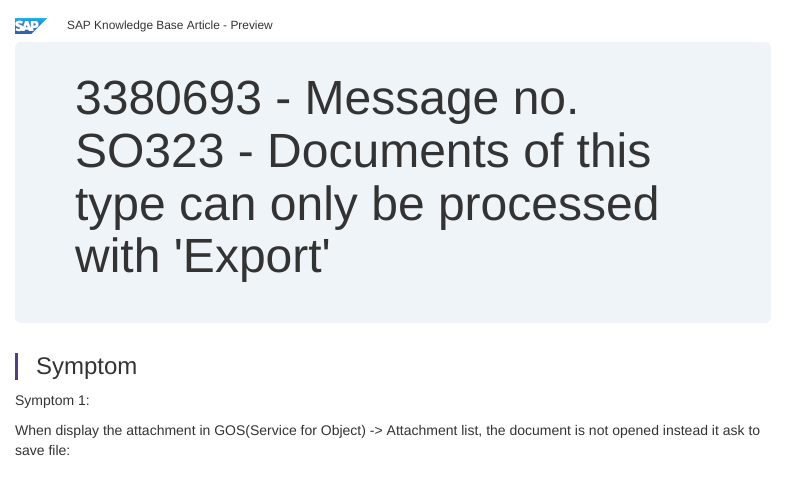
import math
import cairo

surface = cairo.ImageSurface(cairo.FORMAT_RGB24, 786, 482)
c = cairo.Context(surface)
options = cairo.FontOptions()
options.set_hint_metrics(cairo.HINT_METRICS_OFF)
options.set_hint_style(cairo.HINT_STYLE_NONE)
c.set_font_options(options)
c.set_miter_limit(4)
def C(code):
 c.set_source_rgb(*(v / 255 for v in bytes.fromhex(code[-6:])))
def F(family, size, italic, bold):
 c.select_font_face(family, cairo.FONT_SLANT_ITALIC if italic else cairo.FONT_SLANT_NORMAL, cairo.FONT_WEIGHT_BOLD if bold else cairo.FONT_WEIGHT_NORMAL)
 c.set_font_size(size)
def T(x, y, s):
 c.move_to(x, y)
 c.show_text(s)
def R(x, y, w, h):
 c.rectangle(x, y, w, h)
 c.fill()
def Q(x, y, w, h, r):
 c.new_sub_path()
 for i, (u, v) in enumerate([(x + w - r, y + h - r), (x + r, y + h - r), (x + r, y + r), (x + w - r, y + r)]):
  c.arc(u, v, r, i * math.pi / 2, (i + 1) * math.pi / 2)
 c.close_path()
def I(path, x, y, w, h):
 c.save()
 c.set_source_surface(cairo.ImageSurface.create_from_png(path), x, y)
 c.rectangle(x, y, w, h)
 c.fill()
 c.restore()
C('ffffff')
c.paint()
I('1.png',15,18,32,16)
F('Liberation Sans',11.9,0,0)
C('333333')
T(67,29,'SAP Knowledge Base Article - Preview')
C('eff4f9')
Q(15,42,756,281,6)
c.fill()
F('Liberation Sans',48,0,0)
C('333333')
T(75,114,'3380693 - Message no.')
T(75,167,'SO323 - Documents of this')
T(75,220,'type can only be processed')
T(75,272,'with \'Export\'')
C('563d7c')
R(15,353,3,27)
F('Liberation Sans',24,0,0)
C('333333')
T(36,374,'Symptom')
F('Liberation Sans',14,0,0)
T(15,405,'Symptom 1:')
T(15,435,'When display the attachment in GOS(Service for Object) -> Attachment list, the document is not opened instead it ask to')
T(15,455,'save file:')
surface.write_to_png('o.png')
